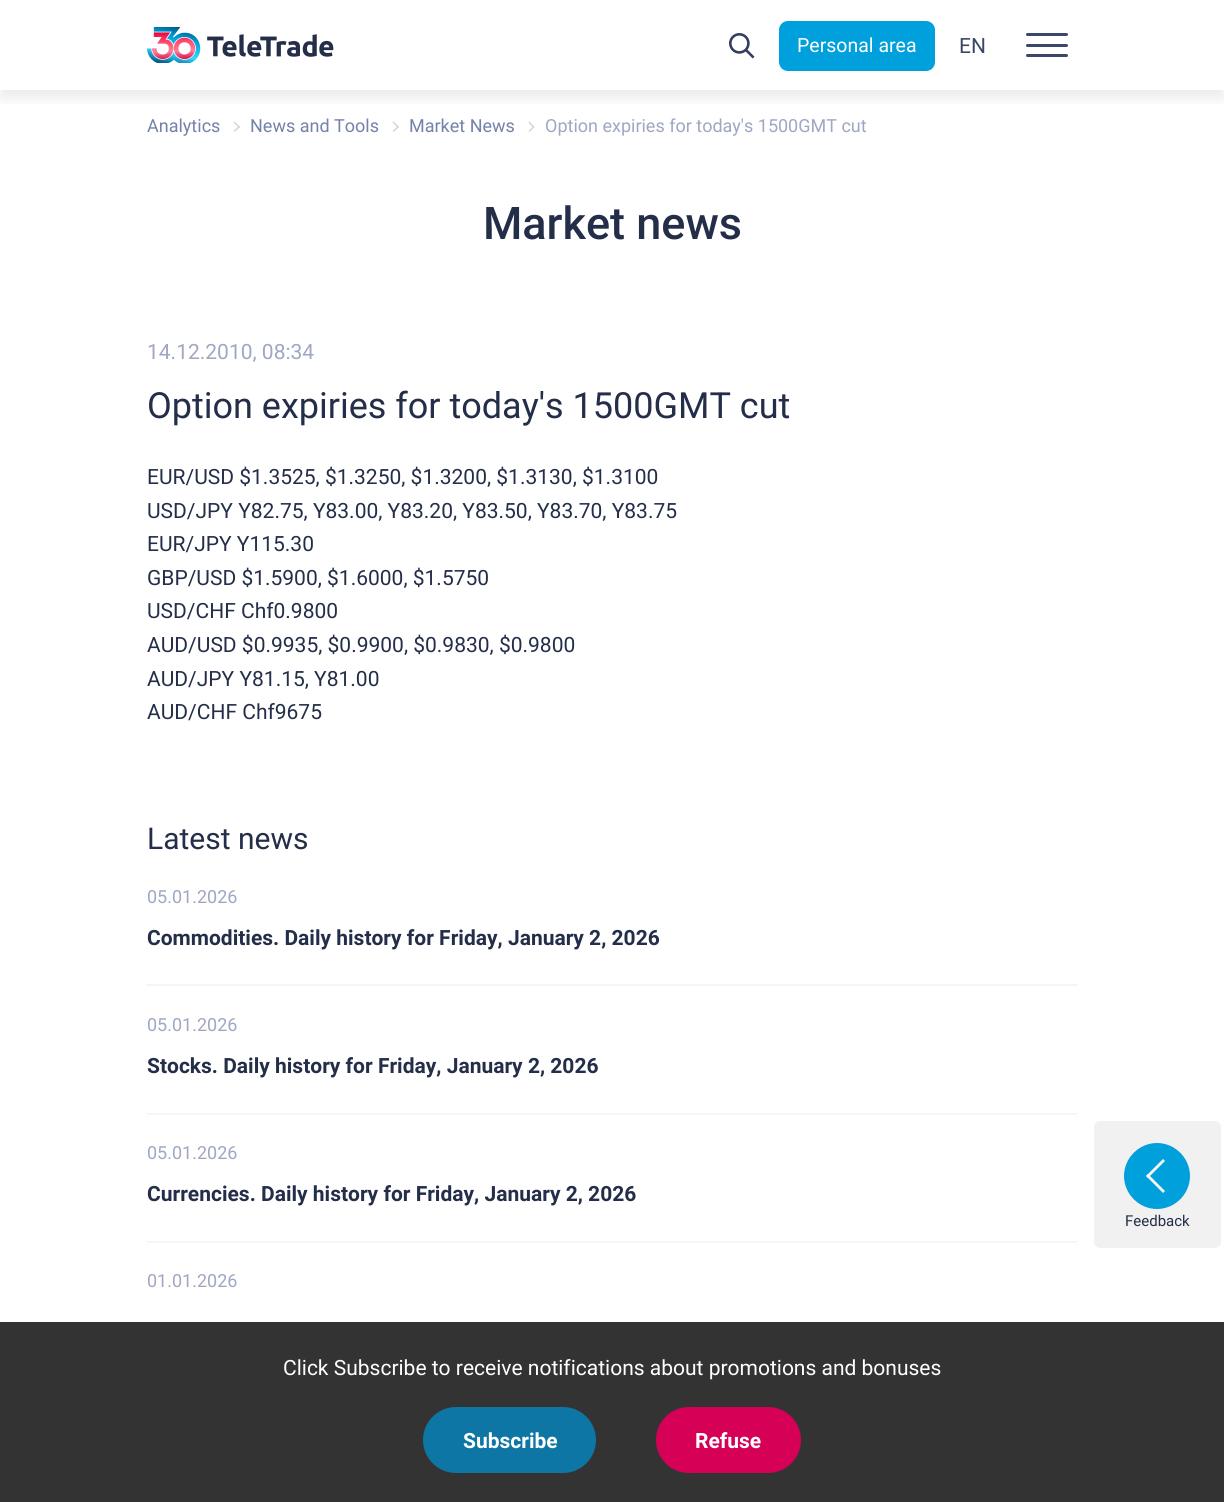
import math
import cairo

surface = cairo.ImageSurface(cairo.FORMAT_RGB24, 1224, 1502)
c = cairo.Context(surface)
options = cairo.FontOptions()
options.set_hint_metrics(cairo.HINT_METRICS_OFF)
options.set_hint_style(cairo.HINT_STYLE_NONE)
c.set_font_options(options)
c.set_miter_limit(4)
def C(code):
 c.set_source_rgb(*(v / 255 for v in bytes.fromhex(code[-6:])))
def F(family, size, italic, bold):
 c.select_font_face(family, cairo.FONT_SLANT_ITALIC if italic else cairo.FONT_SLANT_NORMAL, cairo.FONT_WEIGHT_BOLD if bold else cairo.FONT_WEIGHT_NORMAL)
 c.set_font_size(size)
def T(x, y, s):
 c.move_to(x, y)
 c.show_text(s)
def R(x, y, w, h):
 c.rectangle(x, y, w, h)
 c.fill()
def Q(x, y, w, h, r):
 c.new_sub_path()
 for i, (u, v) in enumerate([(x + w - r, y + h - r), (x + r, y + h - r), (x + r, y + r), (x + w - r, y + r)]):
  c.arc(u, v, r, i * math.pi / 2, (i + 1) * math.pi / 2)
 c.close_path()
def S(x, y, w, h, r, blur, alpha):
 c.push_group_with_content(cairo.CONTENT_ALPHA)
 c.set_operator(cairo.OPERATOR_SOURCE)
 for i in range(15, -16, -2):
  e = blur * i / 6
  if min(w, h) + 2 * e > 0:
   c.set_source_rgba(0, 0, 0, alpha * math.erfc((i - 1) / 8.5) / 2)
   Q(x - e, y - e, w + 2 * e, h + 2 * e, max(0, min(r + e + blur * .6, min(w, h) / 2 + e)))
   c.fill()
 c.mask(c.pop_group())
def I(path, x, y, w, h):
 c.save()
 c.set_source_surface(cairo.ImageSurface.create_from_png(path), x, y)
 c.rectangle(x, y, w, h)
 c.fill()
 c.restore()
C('ffffff')
c.paint()
C('cfd2e1')
c.new_path()
c.move_to(233.5,122.5)
c.line_to(234.5,121.5)
c.line_to(240,127)
c.line_to(239,128)
c.close_path()
c.fill()
c.new_path()
c.move_to(392.5,122.5)
c.line_to(393.5,121.5)
c.line_to(399,127)
c.line_to(398,128)
c.close_path()
c.fill()
c.new_path()
c.move_to(528.5,122.5)
c.line_to(529.5,121.5)
c.line_to(534.5,127)
c.line_to(533.5,128)
c.close_path()
c.fill()
c.save()
c.rectangle(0,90,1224,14)
c.clip()
C('242e49')
S(0,8,1224,90,0,7.5,.1)
c.restore()
I('1.png',147,27,187,36)
I('2.png',729,33,26,26)
C('00a0dc')
Q(779,21,156,50,9)
c.fill()
F('Roboto',19.5,0,0)
C('ffffff')
T(797,52,'Personal area')
F('Roboto',21,0,0)
C('3a4769')
T(959,53,'EN')
Q(1026,44,42,3,1.5)
c.fill()
Q(1026,33,42,3,1.5)
c.fill()
Q(1026,54,42,3,1.5)
c.fill()
F('Roboto',18,0,0)
C('7481aa')
T(147,132,'Analytics')
C('cfd2e1')
c.new_path()
c.move_to(233.5,131)
c.line_to(239,126)
c.line_to(240,127)
c.line_to(234.5,132)
c.close_path()
c.fill()
C('7481aa')
T(250,132,'News and Tools')
C('cfd2e1')
c.new_path()
c.move_to(392.5,131)
c.line_to(398,126)
c.line_to(399,127)
c.line_to(393.5,132)
c.close_path()
c.fill()
C('7481aa')
T(409,132,'Market News')
C('cfd2e1')
c.new_path()
c.move_to(528.5,131)
c.line_to(533.5,126)
c.line_to(534.5,127)
c.line_to(529.5,132)
c.close_path()
c.fill()
C('a0a6c3')
T(545,132,'Option expiries for today\'s 1500GMT cut')
F('Roboto Medium',45,0,0)
C('242e49')
T(483,239,'Market news')
F('Roboto',21,0,0)
C('a0a6c3')
T(147,359,'14.12.2010, 08:34')
F('Roboto',36,0,0)
C('242e49')
T(147,418,'Option expiries for today\'s 1500GMT cut')
F('Roboto',21,0,0)
T(147,484,'EUR/USD $1.3525, $1.3250, $1.3200, $1.3130, $1.3100')
T(147,518,'USD/JPY Y82.75, Y83.00, Y83.20, Y83.50, Y83.70, Y83.75')
T(147,551,'EUR/JPY Y115.30')
T(147,585,'GBP/USD $1.5900, $1.6000, $1.5750')
T(147,618,'USD/CHF Chf0.9800')
T(147,652,'AUD/USD $0.9935, $0.9900, $0.9830, $0.9800')
T(147,686,'AUD/JPY Y81.15, Y81.00')
T(147,719,'AUD/CHF Chf9675')
F('Roboto',30,0,0)
T(147,849,'Latest news')
C('f5f5f8')
R(147,984,930,2)
F('Roboto',18,0,0)
C('a0a6c3')
T(147,903,'05.01.2026')
F('Roboto',21,0,1)
C('242e49')
T(147,945,'Commodities. Daily history for Friday, January 2, 2026')
C('f5f5f8')
R(147,1113,930,2)
F('Roboto',18,0,0)
C('a0a6c3')
T(147,1031,'05.01.2026')
F('Roboto',21,0,1)
C('242e49')
T(147,1073,'Stocks. Daily history for Friday, January 2, 2026')
C('f5f5f8')
R(147,1241,930,2)
F('Roboto',18,0,0)
C('a0a6c3')
T(147,1159,'05.01.2026')
F('Roboto',21,0,1)
C('242e49')
T(147,1201,'Currencies. Daily history for Friday, January 2, 2026')
F('Roboto',18,0,0)
C('a0a6c3')
T(147,1287,'01.01.2026')
C('f1f1f1')
Q(1094,1121,127,127,6)
c.fill()
C('00a0dc')
c.new_path()
c.move_to(1124,1176)
c.curve_to(1124,1158,1139,1143,1157,1143)
c.curve_to(1175,1143,1190,1158,1190,1176)
c.curve_to(1190,1194,1175,1209,1157,1209)
c.curve_to(1139,1209,1124,1194,1124,1176)
c.close_path()
c.fill()
C('f5f5f8')
c.new_path()
c.move_to(1163,1193)
c.line_to(1146,1176)
c.line_to(1148,1174)
c.line_to(1165,1191)
c.close_path()
c.fill()
c.new_path()
c.move_to(1146,1176)
c.line_to(1163,1159)
c.line_to(1165,1161)
c.line_to(1148,1178)
c.close_path()
c.fill()
F('Roboto',15,0,0)
C('242e49')
T(1125,1226,'Feedback')
C('333333')
R(0,1322,1224,180)
F('Roboto',21,0,0)
C('ffffff')
T(283,1375,'Click Subscribe to receive notifications about promotions and bonuses')
C('0d76a4')
Q(423,1407,173,66,33)
c.fill()
F('Roboto',21,0,1)
C('ffffff')
T(463,1448,'Subscribe')
C('d60057')
Q(656,1407,145,66,33)
c.fill()
C('ffffff')
T(695,1448,'Refuse')
surface.write_to_png('o.png')
